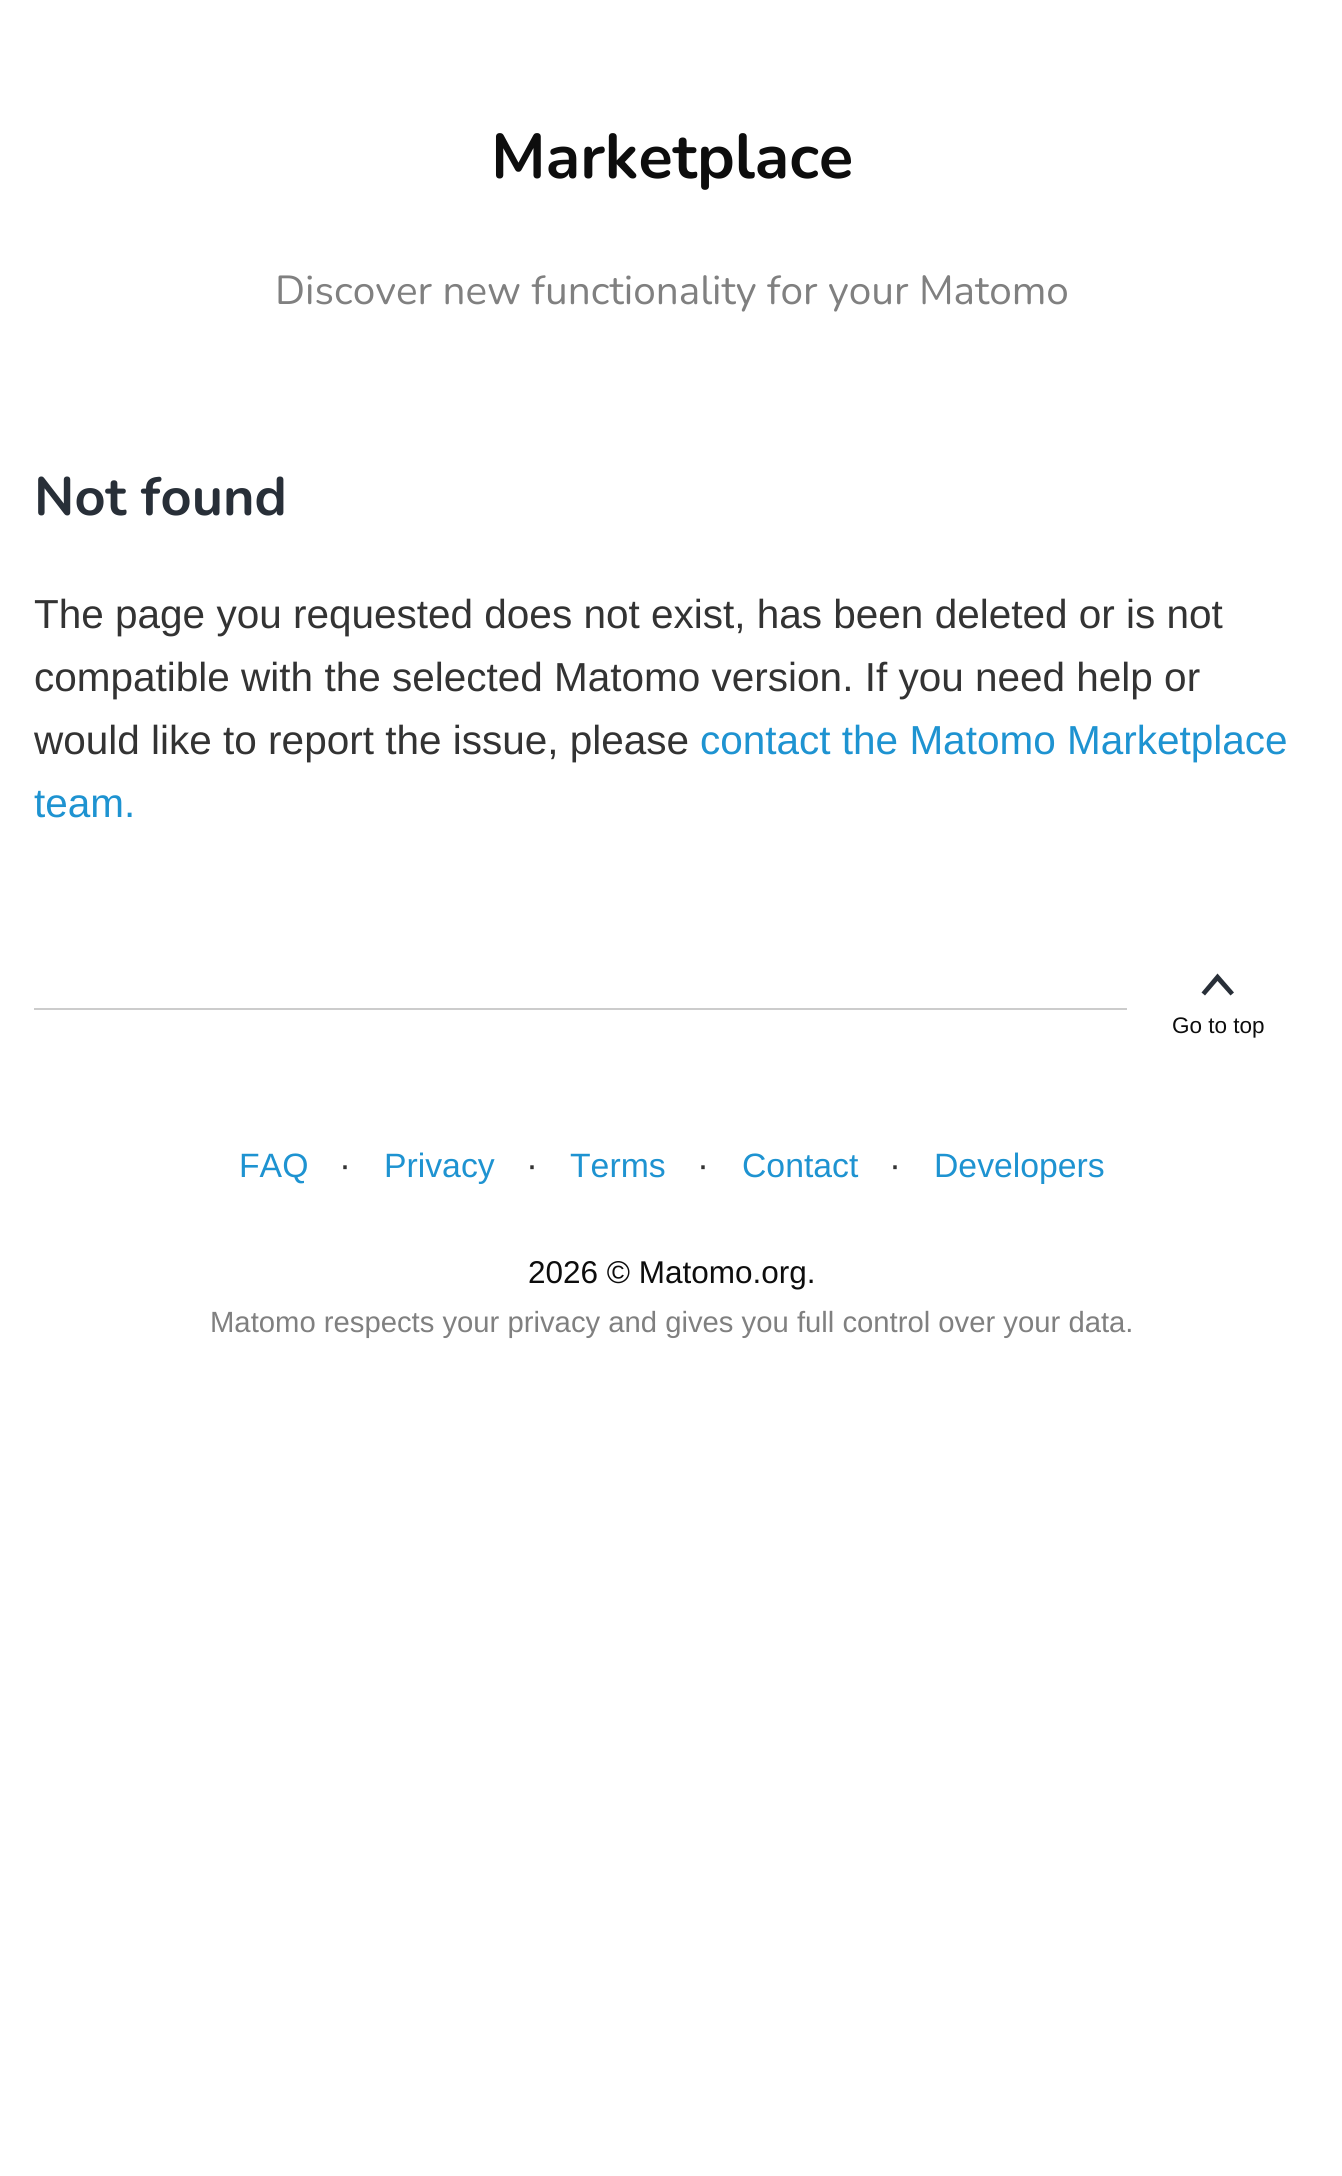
import math
import cairo

surface = cairo.ImageSurface(cairo.FORMAT_RGB24, 1342, 2176)
c = cairo.Context(surface)
options = cairo.FontOptions()
options.set_hint_metrics(cairo.HINT_METRICS_OFF)
options.set_hint_style(cairo.HINT_STYLE_NONE)
c.set_font_options(options)
c.set_miter_limit(4)
def C(code):
 c.set_source_rgb(*(v / 255 for v in bytes.fromhex(code[-6:])))
def F(family, size, italic, bold):
 c.select_font_face(family, cairo.FONT_SLANT_ITALIC if italic else cairo.FONT_SLANT_NORMAL, cairo.FONT_WEIGHT_BOLD if bold else cairo.FONT_WEIGHT_NORMAL)
 c.set_font_size(size)
def T(x, y, s):
 c.move_to(x, y)
 c.show_text(s)
def R(x, y, w, h):
 c.rectangle(x, y, w, h)
 c.fill()
C('ffffff')
c.paint()
F('Nunito',63,0,1)
C('0d0d0d')
T(491,178,'Marketplace')
F('Nunito',40.5,0,0)
C('808080')
T(275,304,'Discover new functionality for your Matomo')
F('Nunito',54,0,1)
C('282f38')
T(34,515,'Not found')
F('Liberation Sans',40.5,0,0)
C('333333')
T(34,628,'The page you requested does not exist, has been deleted or is not')
T(34,691,'compatible with the selected Matomo version. If you need help or')
T(34,754,'would like to report the issue, please')
C('1e93d1')
T(700,754,'contact the Matomo Marketplace')
T(34,817,'team.')
C('cccccc')
R(34,1008,1093,2)
C('282f38')
c.new_path()
c.move_to(1205,995.5)
c.line_to(1217.5,981)
c.line_to(1230.5,995.5)
c.line_to(1234,992.5)
c.line_to(1217.5,973.5)
c.line_to(1201.5,992.5)
c.close_path()
c.fill()
F('Liberation Sans',22.5,0,0)
C('0d0d0d')
T(1172,1033,'Go to top')
F('Liberation Sans',33.75,0,0)
C('1e93d1')
T(239,1177,'FAQ')
F('Liberation Sans',36,0,0)
C('333333')
T(339,1177,'·')
F('Liberation Sans',33.75,0,0)
C('1e93d1')
T(384,1177,'Privacy')
F('Liberation Sans',36,0,0)
C('333333')
T(526,1177,'·')
F('Liberation Sans',33.75,0,0)
C('1e93d1')
T(570,1177,'Terms')
F('Liberation Sans',36,0,0)
C('333333')
T(697,1177,'·')
F('Liberation Sans',33.75,0,0)
C('1e93d1')
T(742,1177,'Contact')
F('Liberation Sans',36,0,0)
C('333333')
T(889,1177,'·')
F('Liberation Sans',33.75,0,0)
C('1e93d1')
T(934,1177,'Developers')
F('Liberation Sans',31.5,0,0)
C('0d0d0d')
T(528,1283,'2026 © Matomo.org.')
F('Liberation Sans',29.25,0,0)
C('808080')
T(210,1332,'Matomo respects your privacy and gives you full control over your data.')
surface.write_to_png('o.png')
